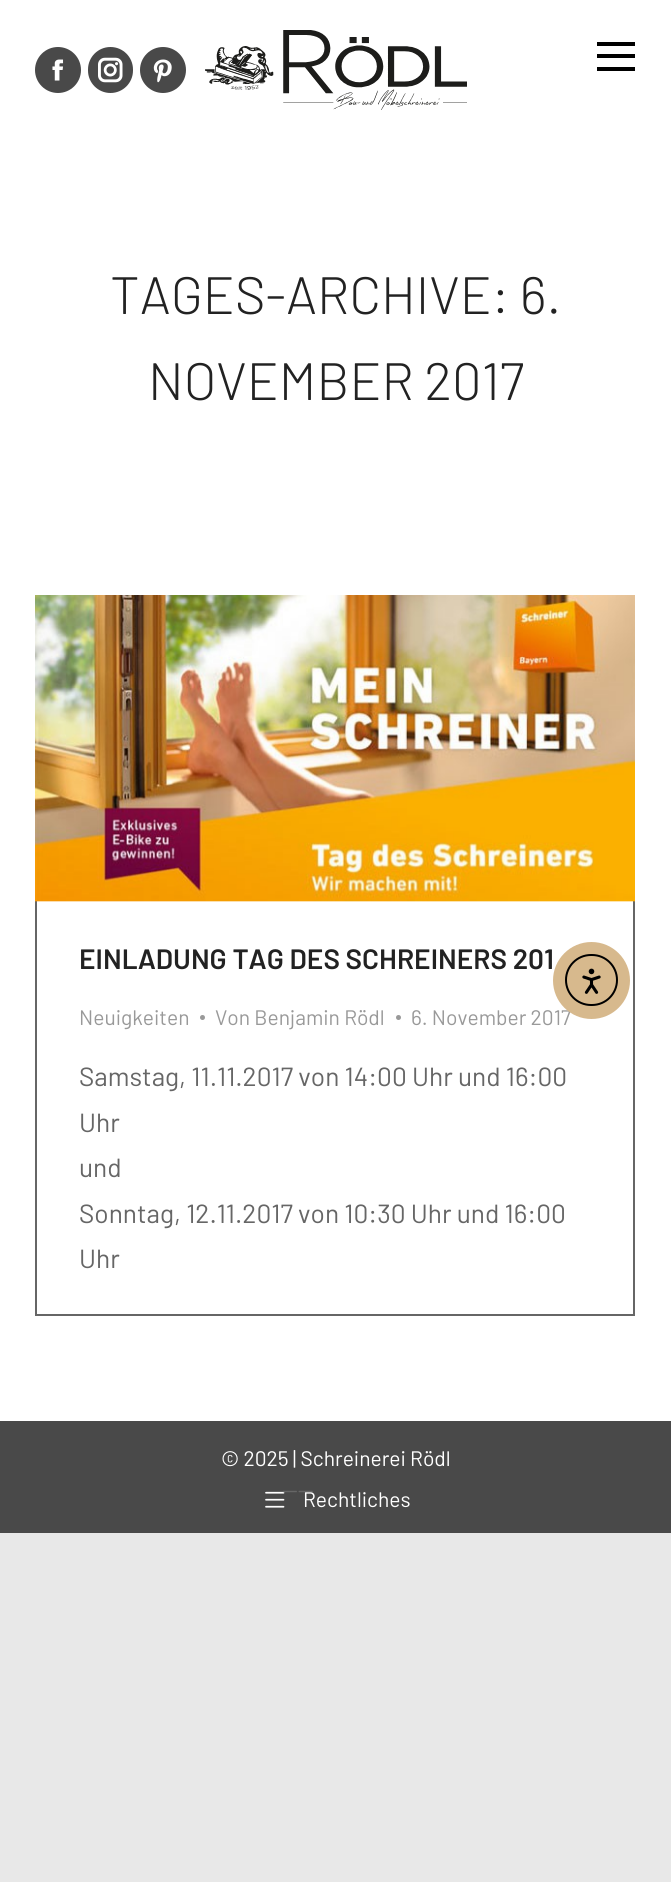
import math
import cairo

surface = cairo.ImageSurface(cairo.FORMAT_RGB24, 671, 1882)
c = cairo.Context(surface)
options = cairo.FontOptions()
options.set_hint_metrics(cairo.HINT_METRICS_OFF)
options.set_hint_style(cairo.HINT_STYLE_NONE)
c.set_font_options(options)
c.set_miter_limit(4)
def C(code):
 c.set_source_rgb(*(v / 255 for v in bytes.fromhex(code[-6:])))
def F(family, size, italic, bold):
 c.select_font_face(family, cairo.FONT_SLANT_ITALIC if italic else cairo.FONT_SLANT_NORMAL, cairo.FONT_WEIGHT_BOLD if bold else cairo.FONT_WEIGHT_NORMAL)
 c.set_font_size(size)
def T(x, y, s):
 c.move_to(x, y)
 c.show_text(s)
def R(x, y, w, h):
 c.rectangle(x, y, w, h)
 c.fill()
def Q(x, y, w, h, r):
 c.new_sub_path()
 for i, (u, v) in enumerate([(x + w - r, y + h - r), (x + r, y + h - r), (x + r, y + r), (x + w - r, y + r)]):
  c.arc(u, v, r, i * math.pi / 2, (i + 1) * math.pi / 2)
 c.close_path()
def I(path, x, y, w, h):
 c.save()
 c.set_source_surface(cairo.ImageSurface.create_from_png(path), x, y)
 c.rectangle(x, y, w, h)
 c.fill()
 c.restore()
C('e8e8e8')
c.paint()
C('ffffff')
R(0,0,671,1421)
C('494949')
c.arc(58,70,23,0,2 * math.pi)
c.fill()
I('1.png',52,59,12,22)
Q(88,47,45,46,22.5)
c.fill()
I('2.png',98,57,25,26)
c.arc(163,70,23,0,2 * math.pi)
c.fill()
I('3.png',153,59,19,24)
I('4.png',205,30,262,80)
C('000000')
R(597,42,38,4)
R(597,54,38,4)
R(597,67,38,4)
F('Barlow Light',52.5,0,0)
C('222222')
T(110,314,'TAGES-ARCHIVE: 6.')
T(148,400,'NOVEMBER 2017')
c.rectangle(36,596,598,719)
C('666666')
c.stroke()
I('5.png',35,595,600,307)
F('Barlow SemiBold',28,0,0)
C('222222')
T(79,969,'EINLADUNG TAG DES SCHREINERS 201')
F('Barlow',21,0,0)
C('999999')
T(79,1025,'Neuigkeiten')
c.new_path()
c.arc(202.5,1017.5,2.5,0,2 * math.pi)
c.fill()
T(215,1025,'Von Benjamin Rödl')
c.new_path()
c.arc(398.5,1017.5,2.5,0,2 * math.pi)
c.fill()
T(411,1025,'6. November 2017')
F('Barlow',26.25,0,0)
C('666666')
T(79,1086,'Samstag, 11.11.2017 von 14:00 Uhr und 16:00')
T(79,1132,'Uhr')
T(79,1177,'und')
T(79,1223,'Sonntag, 12.11.2017 von 10:30 Uhr und 16:00')
T(79,1268,'Uhr')
C('494949')
R(0,1421,671,112)
F('Barlow',21,0,0)
C('ffffff')
T(221,1466,'© 2025 | Schreinerei Rödl')
I('6.png',265,1491,20,17)
F('Barlow',23,0,0)
C('666666')
T(282,1498,'——')
F('Barlow',21,0,0)
C('ffffff')
T(303,1507,'Rechtliches')
C('d7b98d')
c.new_path()
c.arc(591.5,980.5,38.5,0,2 * math.pi)
c.fill()
Q(566,955,51,50,25)
C('000000')
c.stroke()
I('7.png',582,968,19,26)
surface.write_to_png('o.png')
